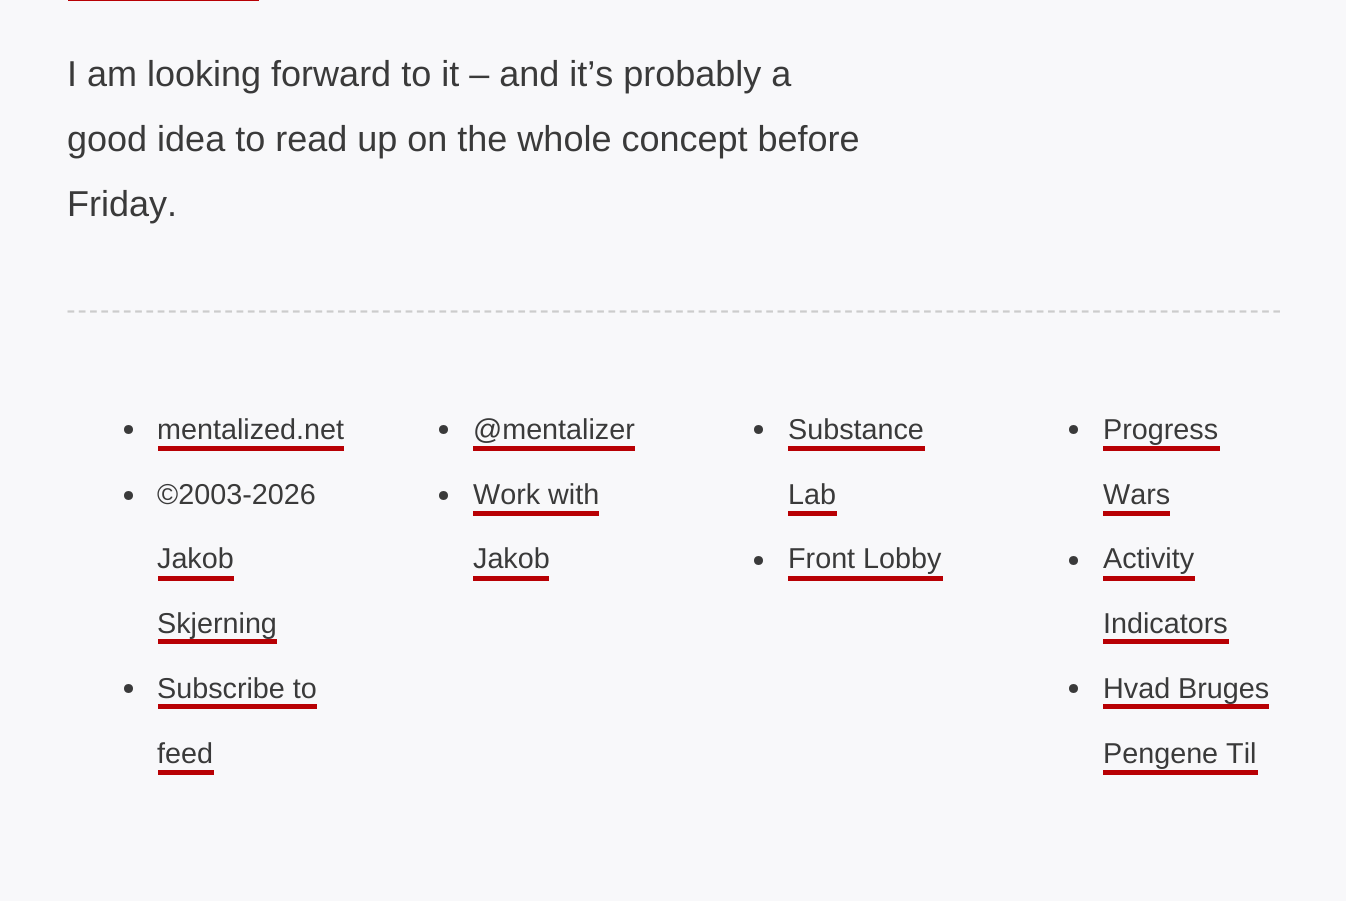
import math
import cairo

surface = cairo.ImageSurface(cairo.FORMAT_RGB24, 1346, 901)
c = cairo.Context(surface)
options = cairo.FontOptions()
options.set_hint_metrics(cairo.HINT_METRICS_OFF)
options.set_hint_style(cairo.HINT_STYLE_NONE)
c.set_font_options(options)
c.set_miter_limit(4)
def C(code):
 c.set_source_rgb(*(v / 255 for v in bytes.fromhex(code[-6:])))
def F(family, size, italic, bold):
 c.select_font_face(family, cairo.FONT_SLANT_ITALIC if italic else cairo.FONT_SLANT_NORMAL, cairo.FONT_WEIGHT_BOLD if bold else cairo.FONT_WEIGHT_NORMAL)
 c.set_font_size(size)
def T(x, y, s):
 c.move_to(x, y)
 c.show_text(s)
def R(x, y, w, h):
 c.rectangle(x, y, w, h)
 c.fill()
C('f8f8fa')
c.paint()
C('b80004')
R(68,0,191,1)
F('Liberation Sans',36,0,0)
C('3a3a3a')
T(67,86,'I am looking forward to it – and it’s probably a')
T(67,151,'good idea to read up on the whole concept before')
T(67,216,'Friday.')
c.new_path()
c.move_to(67.5,311.5)
c.line_to(1280,311.5)
C('cccccc')
c.set_line_width(2.2)
c.set_dash([6.75,4.52])
c.stroke()
C('3a3a3a')
c.arc(128.5,429.5,4.5,0,2 * math.pi)
c.fill()
F('Liberation Sans',28.75,0,0)
T(157,439,'mentalized.net')
C('b80004')
R(158,446,186,5)
C('3a3a3a')
c.new_path()
c.arc(128.5,495.5,4.5,0,2 * math.pi)
c.fill()
T(157,504,'©2003-2026')
T(157,568,'Jakob')
C('b80004')
R(158,576,76,5)
C('3a3a3a')
T(157,633,'Skjerning')
C('b80004')
R(158,639,119,5)
C('3a3a3a')
c.new_path()
c.arc(128.5,688.5,4.5,0,2 * math.pi)
c.fill()
T(157,698,'Subscribe to')
C('b80004')
R(158,704,159,5)
C('3a3a3a')
T(157,763,'feed')
C('b80004')
R(158,770,56,5)
C('3a3a3a')
c.new_path()
c.arc(443.5,429.5,4.5,0,2 * math.pi)
c.fill()
T(473,439,'@mentalizer')
C('b80004')
R(473,446,162,5)
C('3a3a3a')
c.new_path()
c.arc(443.5,495.5,4.5,0,2 * math.pi)
c.fill()
T(473,504,'Work with')
C('b80004')
R(473,511,126,5)
C('3a3a3a')
T(473,568,'Jakob')
C('b80004')
R(473,576,76,5)
C('3a3a3a')
c.new_path()
c.arc(758.5,429.5,4.5,0,2 * math.pi)
c.fill()
T(788,439,'Substance')
C('b80004')
R(788,446,137,5)
C('3a3a3a')
T(788,504,'Lab')
C('b80004')
R(788,511,49,5)
C('3a3a3a')
c.new_path()
c.arc(758.5,560.5,4.5,0,2 * math.pi)
c.fill()
T(788,568,'Front Lobby')
C('b80004')
R(788,576,155,5)
C('3a3a3a')
c.new_path()
c.arc(1073.5,429.5,4.5,0,2 * math.pi)
c.fill()
T(1103,439,'Progress')
C('b80004')
R(1103,446,117,5)
C('3a3a3a')
T(1103,504,'Wars')
C('b80004')
R(1103,511,67,5)
C('3a3a3a')
c.new_path()
c.arc(1073.5,560.5,4.5,0,2 * math.pi)
c.fill()
T(1103,568,'Activity')
C('b80004')
R(1103,576,92,5)
C('3a3a3a')
T(1103,633,'Indicators')
C('b80004')
R(1103,639,126,5)
C('3a3a3a')
c.new_path()
c.arc(1073.5,688.5,4.5,0,2 * math.pi)
c.fill()
T(1103,698,'Hvad Bruges')
C('b80004')
R(1103,704,166,5)
C('3a3a3a')
T(1103,763,'Pengene Til')
C('b80004')
R(1103,770,155,5)
surface.write_to_png('o.png')
